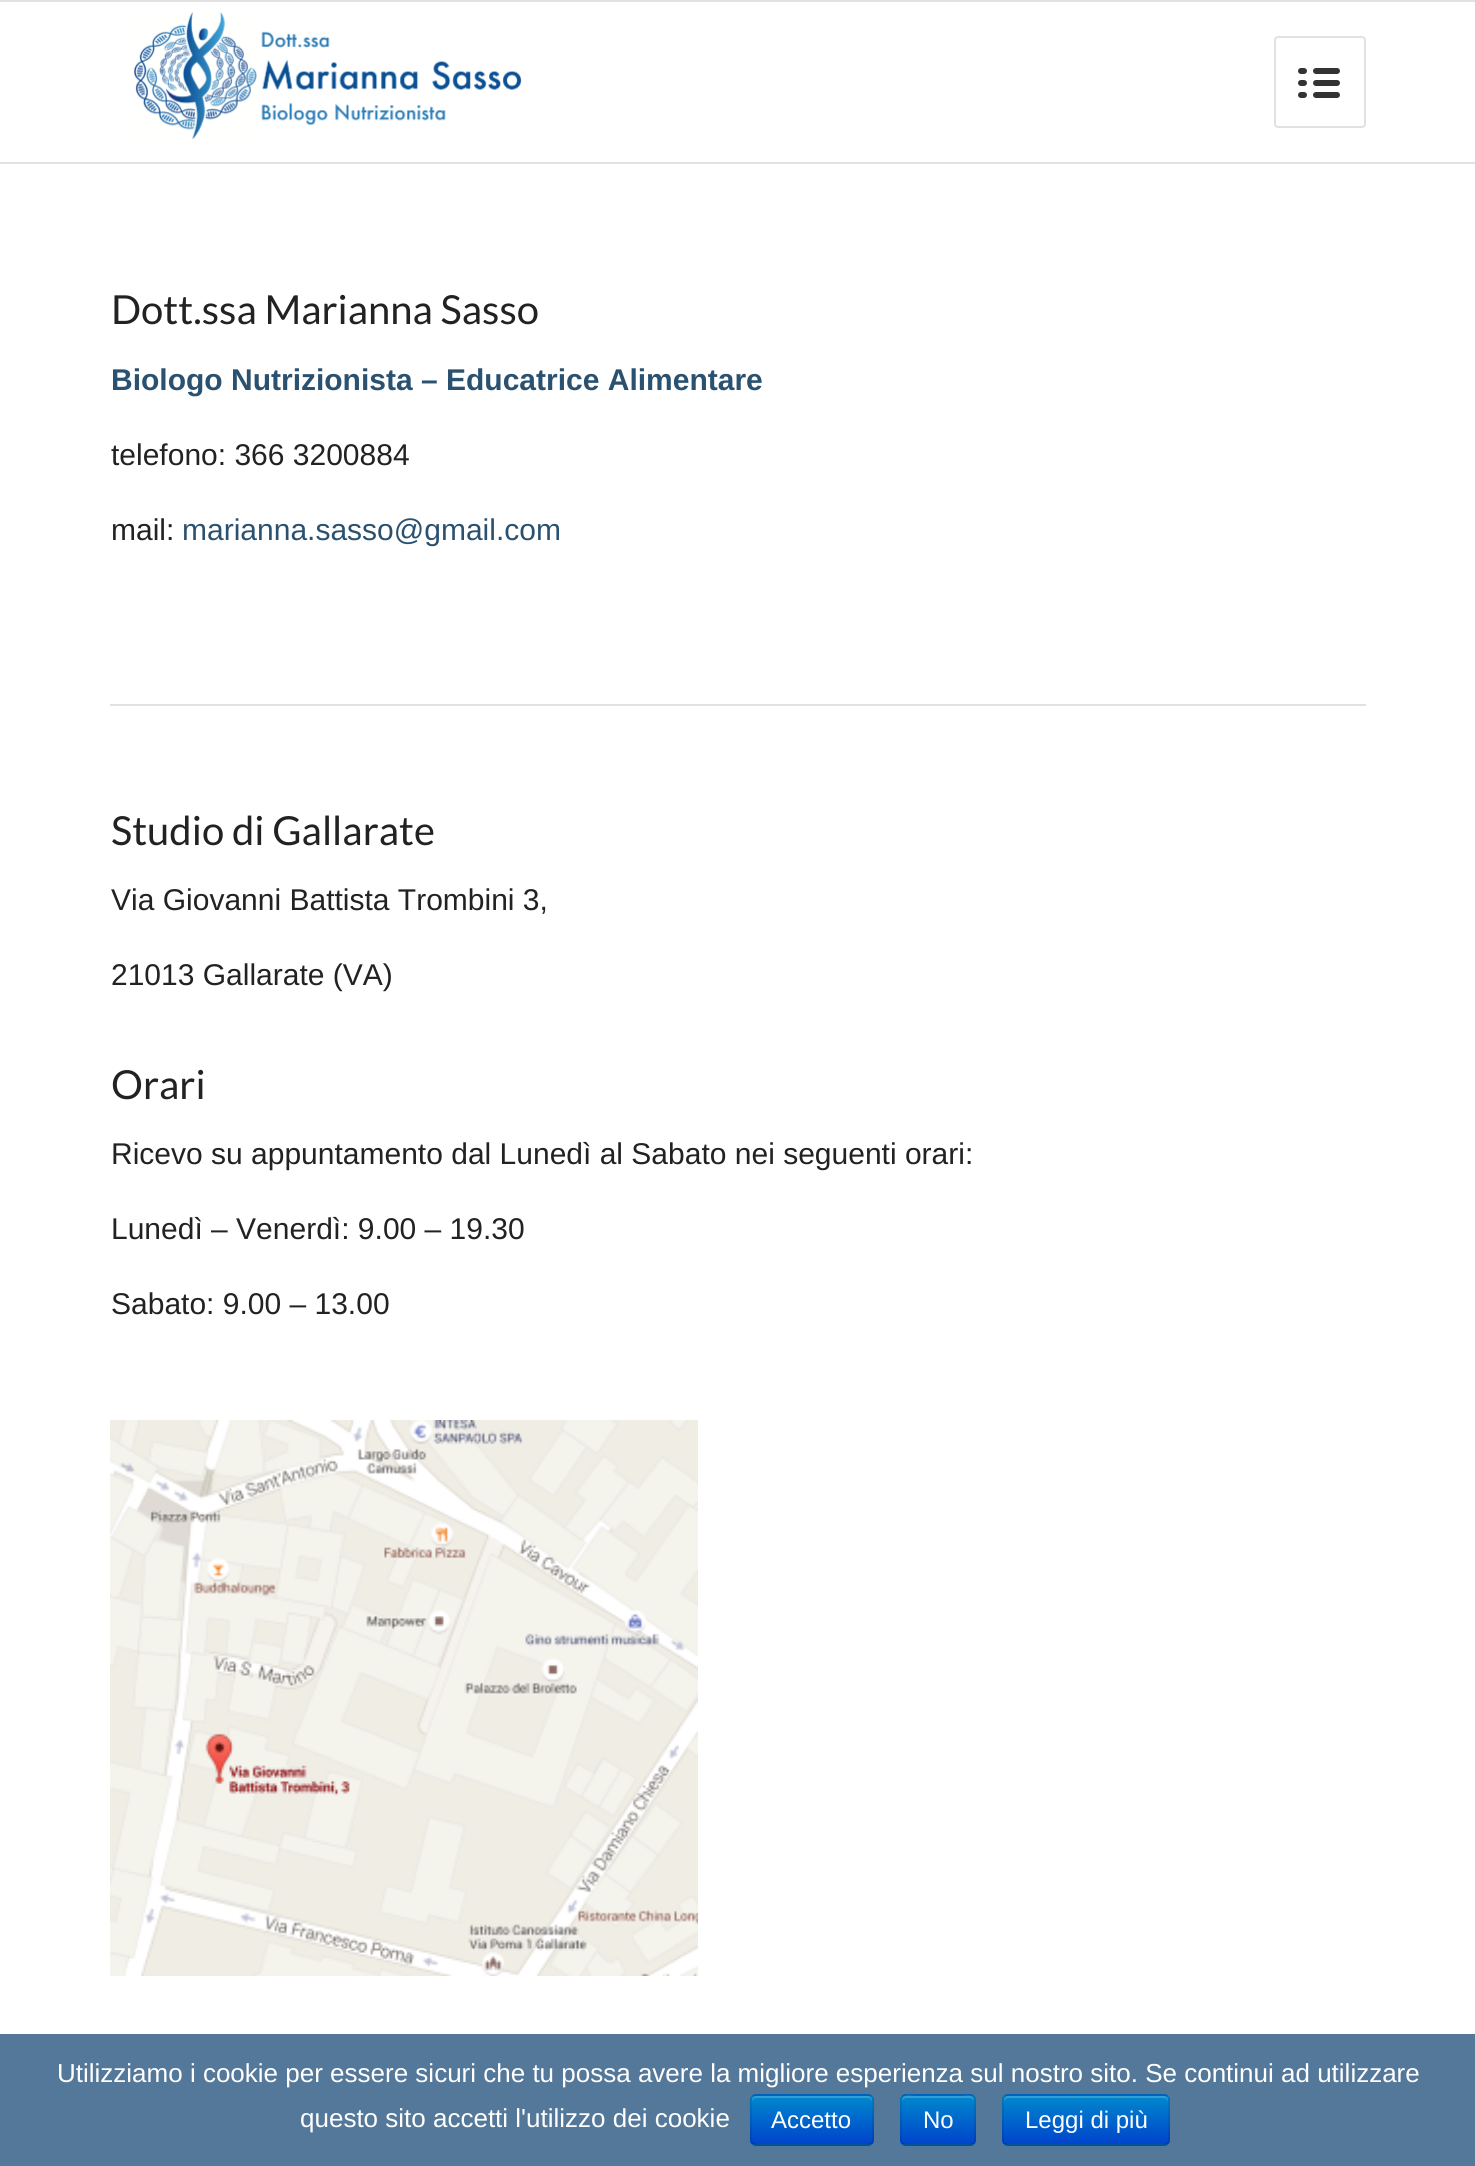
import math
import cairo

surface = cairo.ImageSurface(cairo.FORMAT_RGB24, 1475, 2166)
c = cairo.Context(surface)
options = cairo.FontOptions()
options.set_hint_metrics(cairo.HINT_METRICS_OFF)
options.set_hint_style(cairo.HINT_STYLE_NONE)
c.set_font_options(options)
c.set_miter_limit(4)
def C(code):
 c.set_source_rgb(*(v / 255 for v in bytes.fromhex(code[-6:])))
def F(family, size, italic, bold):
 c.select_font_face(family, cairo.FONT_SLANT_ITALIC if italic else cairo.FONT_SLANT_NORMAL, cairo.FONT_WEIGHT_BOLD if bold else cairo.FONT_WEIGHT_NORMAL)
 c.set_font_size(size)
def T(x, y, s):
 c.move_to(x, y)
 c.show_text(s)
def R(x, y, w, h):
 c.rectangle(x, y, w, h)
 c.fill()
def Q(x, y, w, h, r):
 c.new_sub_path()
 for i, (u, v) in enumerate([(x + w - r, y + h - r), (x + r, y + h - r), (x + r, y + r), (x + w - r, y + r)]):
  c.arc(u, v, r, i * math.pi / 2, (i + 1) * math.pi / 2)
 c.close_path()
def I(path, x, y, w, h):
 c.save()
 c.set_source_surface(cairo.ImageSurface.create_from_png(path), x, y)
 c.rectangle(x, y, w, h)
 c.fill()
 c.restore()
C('ffffff')
c.paint()
C('e1e1e1')
R(0,0,1475,2)
R(0,162,1475,2)
I('1.png',133,12,389,128)
Q(1275,37,90,90,3)
c.stroke()
I('2.png',1298,68,42,30)
F('Lato',40,0,0)
C('222222')
T(111,324,'Dott.ssa Marianna Sasso')
F('Liberation Sans',30,0,1)
C('2b5170')
T(111,390,'Biologo Nutrizionista – Educatrice Alimentare')
F('Liberation Sans',30,0,0)
C('222222')
T(111,465,'telefono: 366 3200884')
T(111,540,'mail:')
C('2b5170')
T(182,540,'marianna.sasso@gmail.com')
C('e1e1e1')
R(110,704,1256,2)
F('Lato',40,0,0)
C('222222')
T(111,845,'Studio di Gallarate')
F('Liberation Sans',30,0,0)
T(111,910,'Via Giovanni Battista Trombini 3,')
T(111,985,'21013 Gallarate (VA)')
F('Lato',40,0,0)
T(111,1099,'Orari')
F('Liberation Sans',30,0,0)
T(111,1164,'Ricevo su appuntamento dal Lunedì al Sabato nei seguenti orari:')
T(111,1239,'Lunedì – Venerdì: 9.00 – 19.30')
T(111,1314,'Sabato: 9.00 – 13.00')
I('3.png',110,1420,588,556)
C('547899')
R(0,2034,1475,132)
F('Liberation Sans',26,0,0)
C('ffffff')
T(57,2082,'Utilizziamo i cookie per essere sicuri che tu possa avere la migliore esperienza sul nostro sito. Se continui ad utilizzare')
T(300,2127,'questo sito accetti l\'utilizzo dei cookie')
C('006dcc')
Q(750,2094,124,52,6)
c.fill()
c.save()
Q(750,2094,124,52,6)
c.clip()
gradient = cairo.LinearGradient(812,2096,812,2144)
gradient.add_color_stop_rgba(0,0,0.533,0.8,1)
gradient.add_color_stop_rgba(1,0,0.267,0.8,1)
c.set_source(gradient)
R(750,2096,124,48)
c.restore()
c.set_source_rgba(1,1,1,0.2)
c.new_path()
c.move_to(756,2098)
c.line_to(868,2098)
c.curve_to(870,2098,872,2100,872,2102)
c.line_to(872,2100)
c.curve_to(872,2098,870,2096,868,2096)
c.line_to(756,2096)
c.curve_to(754,2096,752,2098,752,2100)
c.line_to(752,2102)
c.curve_to(752,2100,754,2098,756,2098)
c.close_path()
c.fill()
c.new_path()
c.move_to(871.5,2143.5)
c.line_to(868.5,2145)
c.line_to(755.5,2145)
c.line_to(752.5,2143.5)
c.set_source_rgba(0,0,0,0.25)
c.stroke()
c.new_path()
c.move_to(752.5,2143.5)
c.curve_to(750,2141,751,2136,751,2133.5)
c.line_to(751,2120)
c.curve_to(751,2091.5,746,2095,774.5,2095)
c.line_to(849.5,2095)
c.curve_to(878,2095,873,2091.5,873,2120)
c.line_to(873,2133.5)
c.curve_to(873,2136,874,2141,871.5,2143.5)
c.set_source_rgba(0,0,0,0.1)
c.stroke()
F('Liberation Sans',24,0,0)
C('ffffff')
T(771,2128,'Accetto')
C('006dcc')
Q(900,2094,76,52,6)
c.fill()
c.save()
Q(900,2094,76,52,6)
c.clip()
gradient = cairo.LinearGradient(938,2096,938,2144)
gradient.add_color_stop_rgba(0,0,0.533,0.8,1)
gradient.add_color_stop_rgba(1,0,0.267,0.8,1)
c.set_source(gradient)
R(900,2096,76,48)
c.restore()
c.set_source_rgba(1,1,1,0.2)
c.new_path()
c.move_to(906,2098)
c.line_to(970,2098)
c.curve_to(972,2098,974,2100,974,2102)
c.curve_to(974,2093,967,2096,959,2096)
c.line_to(917,2096)
c.curve_to(909,2096,902,2093,902,2102)
c.curve_to(902,2100,904,2098,906,2098)
c.close_path()
c.fill()
c.new_path()
c.move_to(973.5,2143.5)
c.curve_to(972.5,2144.5,971.5,2145,970,2145)
c.line_to(906,2145)
c.curve_to(904.5,2145,903.5,2144.5,902.5,2143.5)
c.set_source_rgba(0,0,0,0.25)
c.stroke()
c.new_path()
c.move_to(902.5,2143.5)
c.curve_to(901.5,2142.5,901,2141.5,901,2140)
c.line_to(901,2100)
c.curve_to(901,2098.5,901.5,2097.5,902.5,2096.5)
c.curve_to(903.5,2095.5,904.5,2095,906,2095)
c.line_to(970,2095)
c.curve_to(971.5,2095,972.5,2095.5,973.5,2096.5)
c.curve_to(974.5,2097.5,975,2098.5,975,2100)
c.line_to(975,2140)
c.curve_to(975,2141.5,974.5,2142.5,973.5,2143.5)
c.set_source_rgba(0,0,0,0.1)
c.stroke()
C('ffffff')
T(923,2128,'No')
C('006dcc')
Q(1002,2094,168,52,6)
c.fill()
c.save()
Q(1002,2094,168,52,6)
c.clip()
gradient = cairo.LinearGradient(1086,2096,1086,2144)
gradient.add_color_stop_rgba(0,0,0.533,0.8,1)
gradient.add_color_stop_rgba(1,0,0.267,0.8,1)
c.set_source(gradient)
R(1002,2096,168,48)
c.restore()
c.set_source_rgba(1,1,1,0.2)
c.new_path()
c.move_to(1008,2098)
c.line_to(1164,2098)
c.curve_to(1166,2098,1168,2100,1168,2102)
c.line_to(1168,2100)
c.curve_to(1168,2098,1166,2096,1164,2096)
c.line_to(1008,2096)
c.curve_to(1006,2096,1004,2098,1004,2100)
c.line_to(1004,2102)
c.curve_to(1004,2100,1006,2098,1008,2098)
c.close_path()
c.fill()
c.new_path()
c.move_to(1167.5,2143.5)
c.curve_to(1166.5,2144.5,1165.5,2145,1164,2145)
c.line_to(1008,2145)
c.curve_to(1006.5,2145,1005.5,2144.5,1004.5,2143.5)
c.set_source_rgba(0,0,0,0.25)
c.stroke()
c.new_path()
c.move_to(1004.5,2143.5)
c.curve_to(1003.5,2142.5,1003,2141.5,1003,2140)
c.line_to(1003,2100)
c.curve_to(1003,2098.5,1003.5,2097.5,1004.5,2096.5)
c.curve_to(1005.5,2095.5,1006.5,2095,1008,2095)
c.line_to(1164,2095)
c.curve_to(1165.5,2095,1166.5,2095.5,1167.5,2096.5)
c.curve_to(1168.5,2097.5,1169,2098.5,1169,2100)
c.line_to(1169,2140)
c.curve_to(1169,2141.5,1168.5,2142.5,1167.5,2143.5)
c.set_source_rgba(0,0,0,0.1)
c.stroke()
C('ffffff')
T(1025,2128,'Leggi di più')
surface.write_to_png('o.png')
